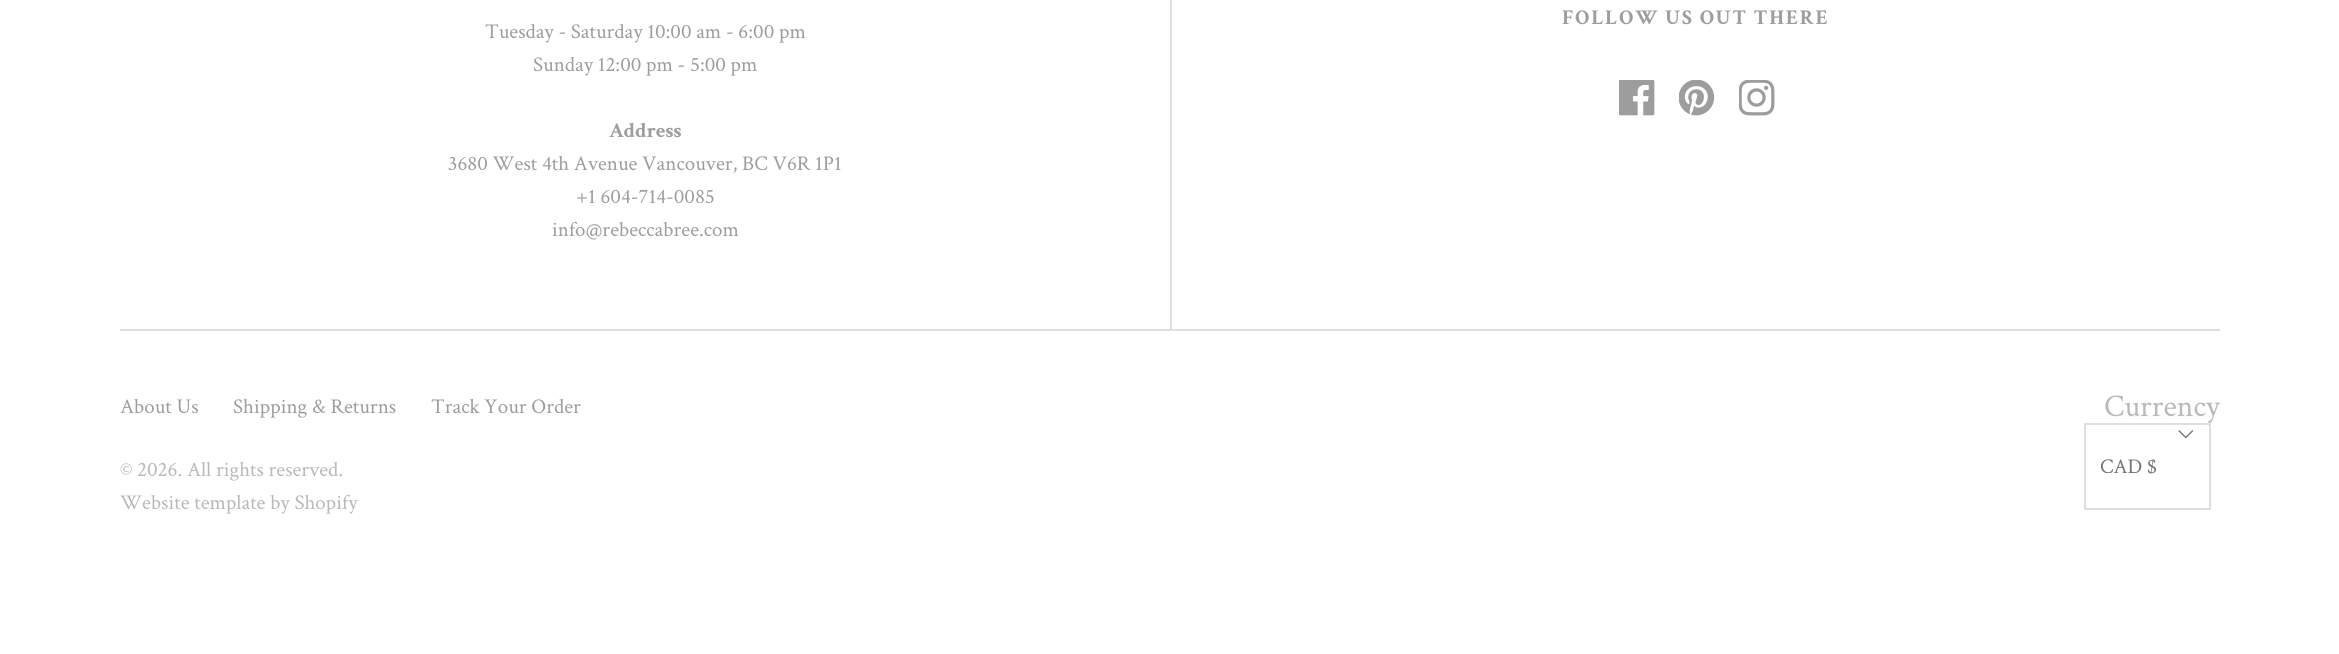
import math
import cairo

surface = cairo.ImageSurface(cairo.FORMAT_RGB24, 2339, 654)
c = cairo.Context(surface)
options = cairo.FontOptions()
options.set_hint_metrics(cairo.HINT_METRICS_OFF)
options.set_hint_style(cairo.HINT_STYLE_NONE)
c.set_font_options(options)
c.set_miter_limit(4)
def C(code):
 c.set_source_rgb(*(v / 255 for v in bytes.fromhex(code[-6:])))
def F(family, size, italic, bold):
 c.select_font_face(family, cairo.FONT_SLANT_ITALIC if italic else cairo.FONT_SLANT_NORMAL, cairo.FONT_WEIGHT_BOLD if bold else cairo.FONT_WEIGHT_NORMAL)
 c.set_font_size(size)
def T(x, y, s):
 c.move_to(x, y)
 c.show_text(s)
def L(x, y, s, letter, word):
 c.move_to(x, y)
 for ch in s:
  c.show_text(ch)
  c.rel_move_to(letter + word * (ch == ' '), 0)
def R(x, y, w, h):
 c.rectangle(x, y, w, h)
 c.fill()
def I(path, x, y, w, h):
 c.save()
 c.set_source_surface(cairo.ImageSurface.create_from_png(path), x, y)
 c.rectangle(x, y, w, h)
 c.fill()
 c.restore()
C('ffffff')
c.paint()
C('dfdfdf')
R(120,329,2100,2)
R(1170,0,2,329)
F('Crimson Text',21,0,1)
C('9d9d9d')
L(1562,24,'FOLLOW US OUT THERE',1.7,0)
I('1.png',1619,80,36,36)
I('2.png',1679,80,36,36)
I('3.png',1739,80,36,36)
F('Crimson Text',21,0,0)
T(485,38,'Tuesday - Saturday 10:00 am - 6:00 pm')
T(533,71,'Sunday 12:00 pm - 5:00 pm')
F('Crimson Text',21,0,1)
T(609,137,'Address')
F('Crimson Text',21,0,0)
T(448,170,'3680 West 4th Avenue Vancouver, BC V6R 1P1')
T(576,203,'+1 604-714-0085')
T(552,236,'info@rebeccabree.com')
T(120,413,'About Us')
T(233,413,'Shipping & Returns')
T(431,413,'Track Your Order')
C('b9b9b9')
T(120,476,'© 2026. All rights reserved.')
T(120,509,'Website template by Shopify')
F('Crimson Text',31.5,0,0)
T(2104,416,'Currency')
c.rectangle(2085,424,125,85)
C('dfdfdf')
c.stroke()
I('4.png',2178,430,15,9)
F('Crimson Text',21,0,0)
C('737373')
T(2100,473,'CAD $')
surface.write_to_png('o.png')
